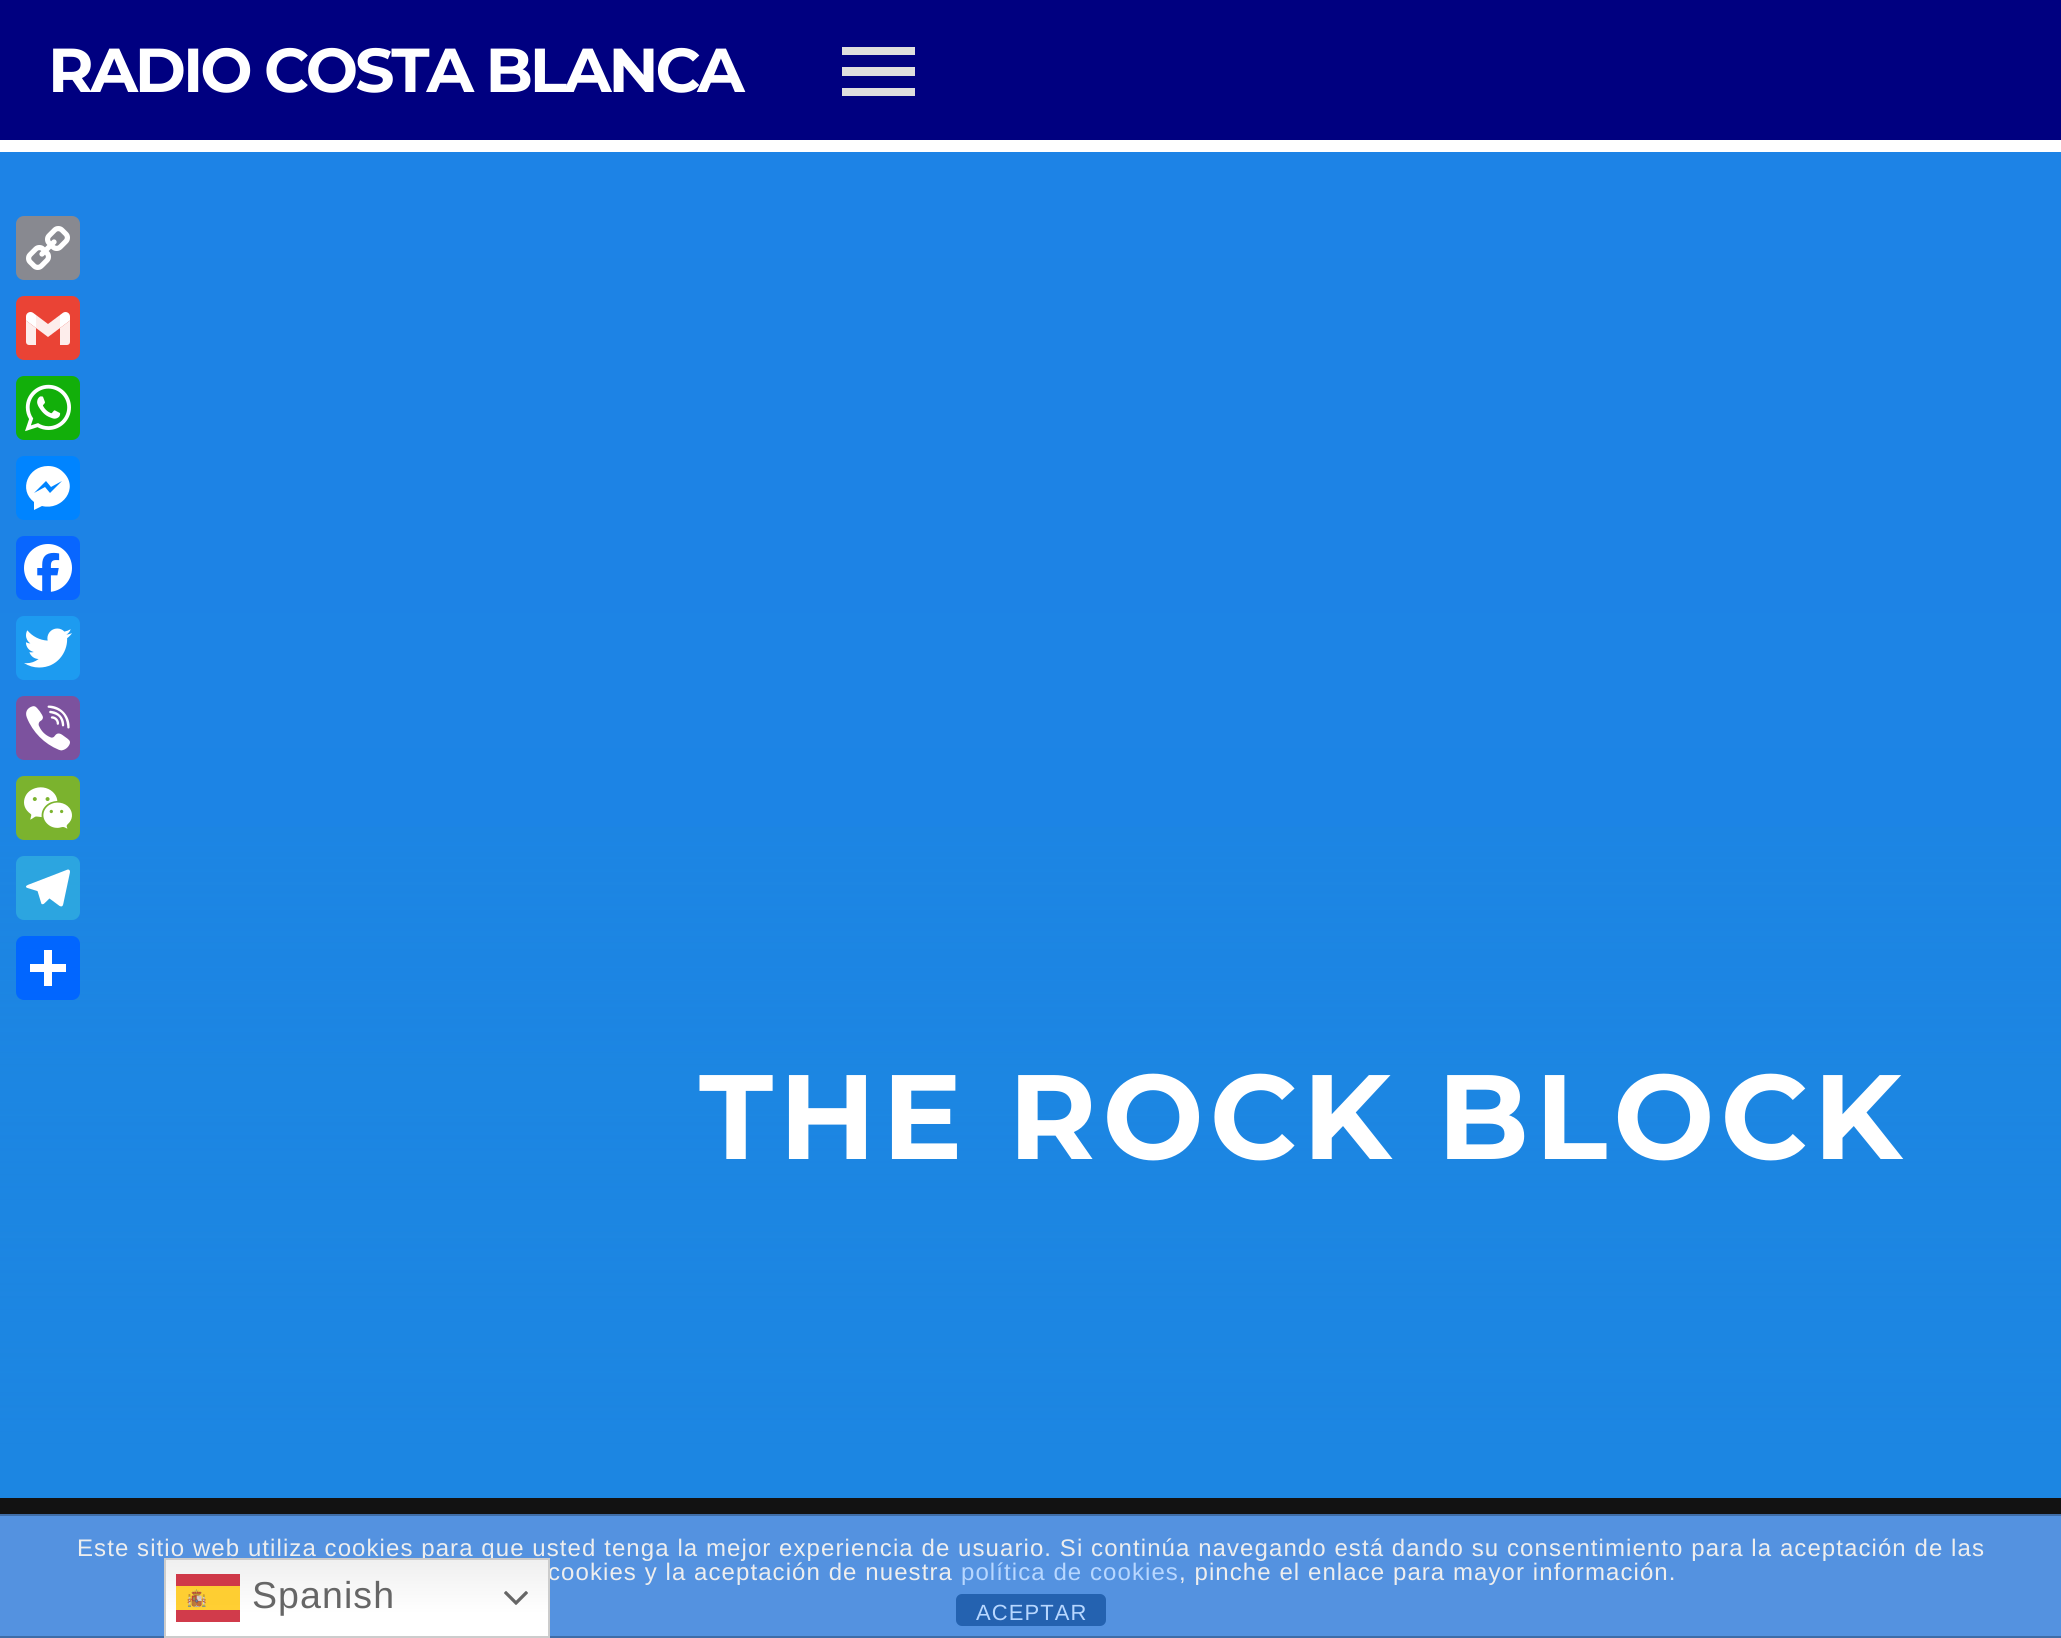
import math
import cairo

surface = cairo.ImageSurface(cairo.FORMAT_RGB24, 2061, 1638)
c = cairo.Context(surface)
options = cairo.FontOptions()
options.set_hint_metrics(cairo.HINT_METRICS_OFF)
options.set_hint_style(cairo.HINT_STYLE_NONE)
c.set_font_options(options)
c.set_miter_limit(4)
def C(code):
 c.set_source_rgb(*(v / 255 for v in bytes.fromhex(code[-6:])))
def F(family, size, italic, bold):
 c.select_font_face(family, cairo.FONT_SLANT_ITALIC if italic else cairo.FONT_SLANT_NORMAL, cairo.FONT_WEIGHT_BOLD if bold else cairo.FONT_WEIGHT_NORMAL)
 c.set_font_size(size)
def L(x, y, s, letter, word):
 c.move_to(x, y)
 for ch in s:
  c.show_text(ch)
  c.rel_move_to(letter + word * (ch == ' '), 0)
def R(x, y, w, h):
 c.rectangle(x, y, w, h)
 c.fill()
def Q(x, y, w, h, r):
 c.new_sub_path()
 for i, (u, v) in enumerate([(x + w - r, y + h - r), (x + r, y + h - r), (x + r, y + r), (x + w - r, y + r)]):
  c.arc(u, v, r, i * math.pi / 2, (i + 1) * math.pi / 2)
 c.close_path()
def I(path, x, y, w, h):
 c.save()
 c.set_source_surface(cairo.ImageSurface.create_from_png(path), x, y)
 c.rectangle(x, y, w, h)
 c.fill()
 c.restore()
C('1c86e2')
c.paint()
C('000080')
R(0,0,2061,140)
F('Montserrat',62,0,1)
C('ffffff')
L(48,92,'RADIO COSTA BLANCA',-3.1,0)
C('dedede')
c.new_path()
c.move_to(842,96)
c.line_to(915,96)
c.line_to(915,88)
c.line_to(842,88)
c.close_path()
c.move_to(842,76)
c.line_to(915,76)
c.line_to(915,67)
c.line_to(842,67)
c.close_path()
c.move_to(842,47)
c.line_to(842,55)
c.line_to(915,55)
c.line_to(915,47)
c.close_path()
c.fill()
C('121212')
R(0,1498,2061,16)
C('ffffff')
R(0,140,2061,12)
gradient = cairo.LinearGradient(1031,-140,1031,1448)
gradient.add_color_stop_rgba(0,0.114,0.51,0.902,1)
gradient.add_color_stop_rgba(1,0.11,0.522,0.894,1)
c.set_source(gradient)
R(0,152,2061,899)
gradient = cairo.LinearGradient(1031,-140,1031,1498)
gradient.add_color_stop_rgba(0,0.11,0.525,0.886,0)
gradient.add_color_stop_rgba(1,0.11,0.525,0.886,1)
c.set_source(gradient)
R(0,827,2061,617)
F('Montserrat',119.9,0,1)
C('ffffff')
L(699,1159,'THE ROCK BLOCK',6,0)
C('888990')
Q(16,216,64,64,8)
c.fill()
I('1.png',26,226,44,44)
C('ea4335')
Q(16,296,64,64,8)
c.fill()
I('2.png',26,312,44,33)
C('12af0a')
Q(16,376,64,64,8)
c.fill()
I('3.png',25,384,46,48)
C('0084ff')
Q(16,456,64,64,8)
c.fill()
C('ffffff')
c.new_path()
c.move_to(48,466)
c.curve_to(28,466,18,490,34,502)
c.line_to(34,510)
c.line_to(42,506)
c.curve_to(62,511,80,488,63,472)
c.curve_to(59,468,54,466,48,466)
c.move_to(50,493)
c.line_to(45,487)
c.line_to(34,493)
c.line_to(46,481)
c.line_to(51,487)
c.line_to(62,481)
c.close_path()
c.fill()
C('0866ff')
Q(16,536,64,64,8)
c.fill()
I('4.png',24,544,48,48)
C('1d9bf0')
Q(16,616,64,64,8)
c.fill()
I('5.png',24,628,48,40)
C('7c529e')
Q(16,696,64,64,8)
c.fill()
I('6.png',26,705,44,46)
C('7bb32e')
Q(16,776,64,64,8)
c.fill()
I('7.png',24,787,48,42)
C('2ca5e0')
Q(16,856,64,64,8)
c.fill()
I('8.png',26,869,44,38)
C('0166ff')
Q(16,936,64,64,8)
c.fill()
C('ffffff')
R(44,950,8,36)
R(30,964,36,8)
C('5492e0')
R(0,1516,2061,120)
C('3f6da7')
R(0,1514,2061,2)
R(0,1636,2061,2)
F('Liberation Sans',24,0,0)
C('eeeeee')
L(77,1556,'Este sitio web utiliza cookies para que usted tenga la mejor experiencia de usuario. Si continúa navegando está dando su consentimiento para la aceptación de las',1.08,0)
L(548,1580,'cookies y la aceptación de nuestra',1.08,0)
C('b7d7ff')
L(961,1580,'política de cookies',1.08,0)
C('eeeeee')
L(1179,1580,', pinche el enlace para mayor información.',1.08,0)
C('2462b0')
Q(956,1594,150,32,6)
c.fill()
F('Liberation Sans',22,0,0)
C('b7d7ff')
L(976,1620,'ACEPTAR',1.08,0)
gradient = cairo.LinearGradient(357,1558,357,1638)
gradient.add_color_stop_rgba(0,0.937,0.937,0.937,1)
gradient.add_color_stop_rgba(.7,1,1,1,1)
c.set_source(gradient)
R(166,1560,382,76)
c.rectangle(165,1559,384,78)
C('cccccc')
c.stroke()
I('9.png',176,1574,64,48)
F('Liberation Sans',37.5,0,0)
C('666666')
L(252,1608,'Spanish',1.08,0)
I('10.png',504,1591,24,14)
surface.write_to_png('o.png')
